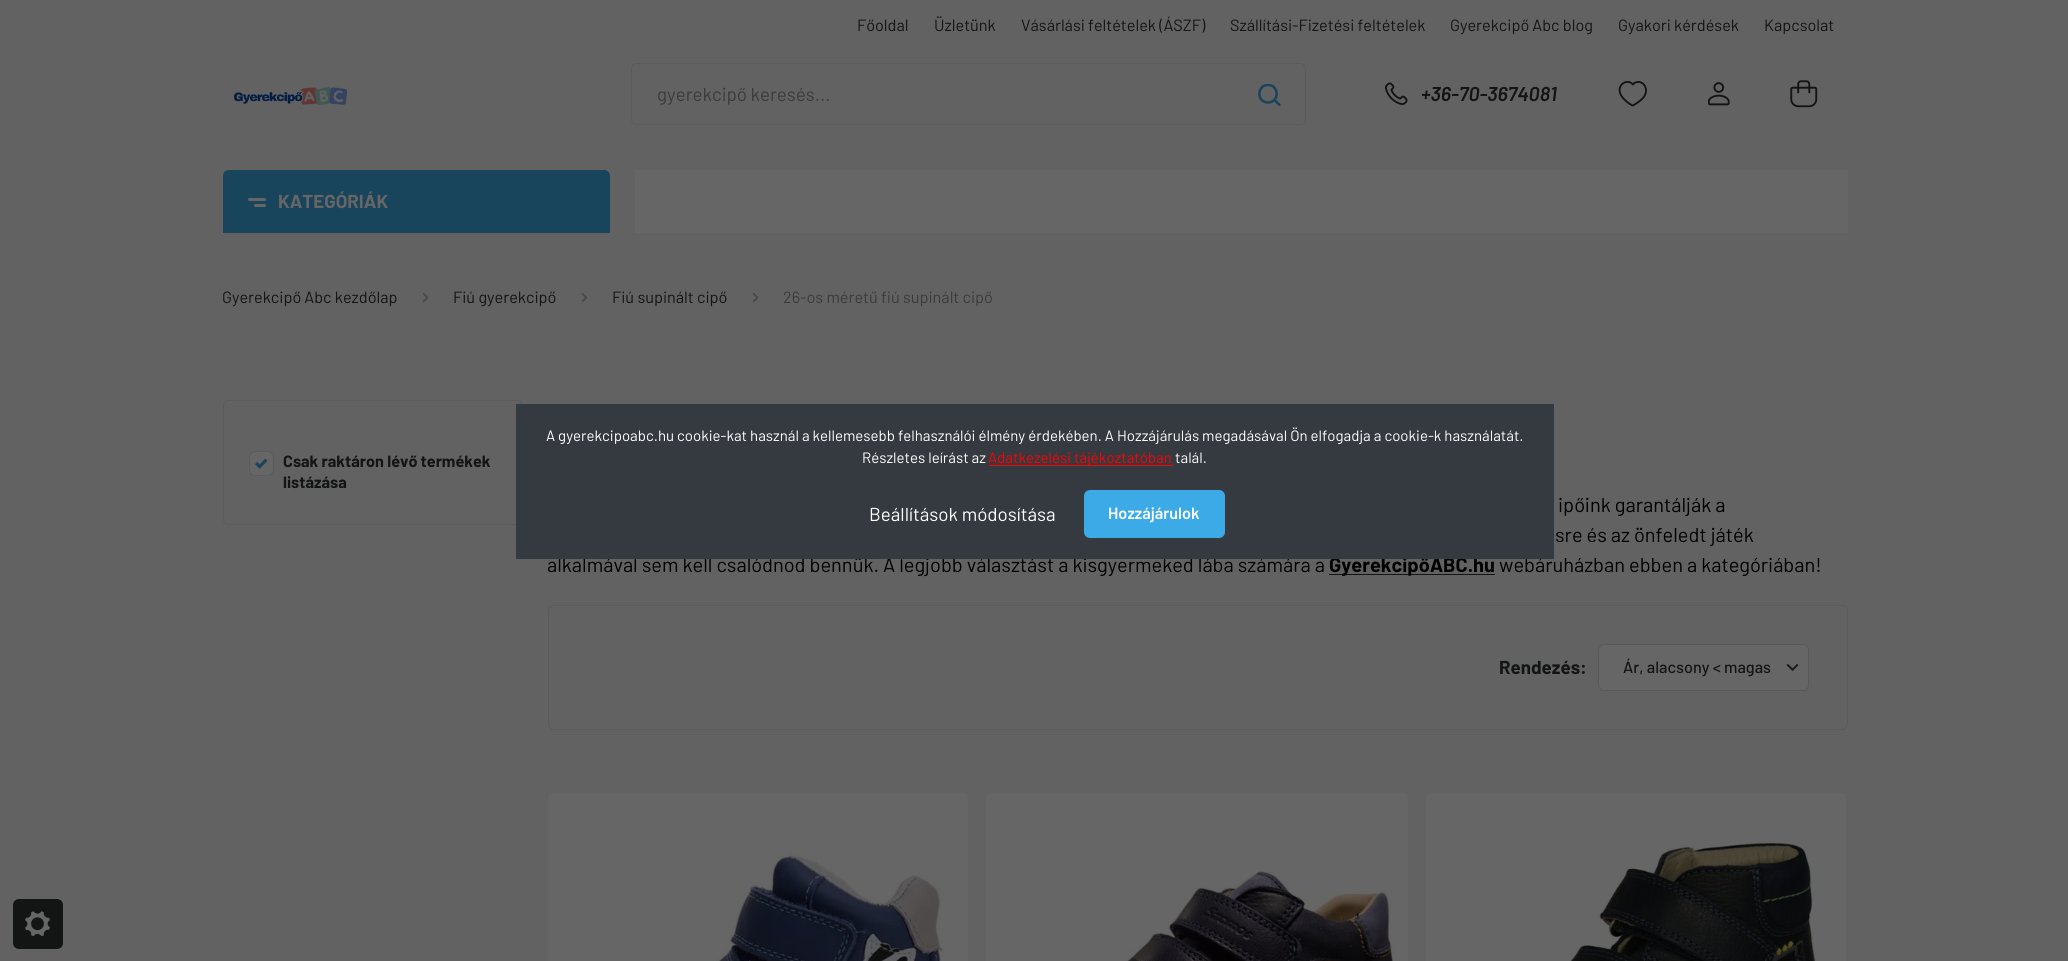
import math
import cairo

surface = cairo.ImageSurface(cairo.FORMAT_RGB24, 2068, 961)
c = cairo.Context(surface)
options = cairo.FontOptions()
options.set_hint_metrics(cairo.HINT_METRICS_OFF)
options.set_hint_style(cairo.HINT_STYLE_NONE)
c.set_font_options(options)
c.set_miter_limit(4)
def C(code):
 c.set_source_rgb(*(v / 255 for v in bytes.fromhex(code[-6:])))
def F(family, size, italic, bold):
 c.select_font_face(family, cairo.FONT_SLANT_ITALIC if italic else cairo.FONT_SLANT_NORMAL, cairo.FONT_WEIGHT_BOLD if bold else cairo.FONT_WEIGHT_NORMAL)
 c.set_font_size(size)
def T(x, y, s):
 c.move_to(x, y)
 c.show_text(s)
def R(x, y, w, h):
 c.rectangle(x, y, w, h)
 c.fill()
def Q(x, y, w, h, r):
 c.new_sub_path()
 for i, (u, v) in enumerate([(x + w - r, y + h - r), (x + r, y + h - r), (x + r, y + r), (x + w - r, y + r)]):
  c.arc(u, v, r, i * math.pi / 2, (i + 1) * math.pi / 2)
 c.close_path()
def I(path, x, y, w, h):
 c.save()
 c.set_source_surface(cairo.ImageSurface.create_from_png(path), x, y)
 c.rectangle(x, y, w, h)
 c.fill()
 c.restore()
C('626262')
c.paint()
F('Barlow',16.25,0,0)
C('131414')
T(857,31,'Főoldal')
T(934,31,'Üzletünk')
T(1021,31,'Vásárlási feltételek (ÁSZF)')
T(1230,31,'Szállítási-Fizetési feltételek')
T(1450,31,'Gyerekcipő Abc blog')
T(1618,31,'Gyakori kérdések')
T(1764,31,'Kapcsolat')
I('1.png',233,87,115,19)
Q(631.5,63.5,674,61,5.5)
C('5b5b5e')
c.set_line_width(1)
c.stroke()
F('Barlow',18.75,0,0)
C('3b3b3c')
T(657,101,'gyerekcipő keresés...')
c.save()
c.rectangle(1258,84,23,22)
c.clip()
c.new_path()
c.move_to(1279.5,105)
c.line_to(1274.5,100)
c.move_to(1268,102.5)
c.curve_to(1256.5,102.5,1256.5,85,1268,85)
c.curve_to(1279.5,85,1279.5,102.5,1268,102.5)
c.close_path()
C('18445c')
c.set_line_width(2.5)
c.set_line_cap(cairo.LINE_CAP_ROUND)
c.set_line_join(cairo.LINE_JOIN_ROUND)
c.stroke()
c.restore()
I('2.png',1385,82,23,23)
F('Barlow SemiBold',20,1,0)
C('131414')
T(1421,101,'+36-70-3674081')
c.new_path()
c.move_to(1638.5,82)
c.curve_to(1644,82,1647.5,88.5,1645.5,93.5)
c.curve_to(1644.5,97.5,1640.5,100.5,1637,103)
c.line_to(1633,105.5)
c.curve_to(1631.5,105.5,1627,102,1626,101)
c.curve_to(1611,88.5,1626,76.5,1633,84.5)
c.curve_to(1634,83,1635.5,82,1638.5,82)
c.close_path()
c.set_line_width(1.9)
c.set_line_cap(cairo.LINE_CAP_ROUND)
c.set_line_join(cairo.LINE_JOIN_ROUND)
c.stroke()
I('3.png',1708,82,22,24)
I('4.png',1790,80,28,28)
C('18445c')
c.new_path()
c.move_to(229,170)
c.line_to(604,170)
c.curve_to(607.5,170,610,172.5,610,176)
c.line_to(610,233)
c.line_to(223,233)
c.line_to(223,176)
c.curve_to(223,172.5,225.5,170,229,170)
c.close_path()
c.fill()
C('666666')
Q(248,198,18,3,1.5)
c.fill()
Q(254,204,12,3,1.5)
c.fill()
F('Barlow',18.75,0,1)
T(278,208,'KATEGÓRIÁK')
R(635,170,1213,63)
F('Barlow',16.25,0,0)
C('131414')
T(222,303,'Gyerekcipő Abc kezdőlap')
I('5.png',423,293,6,10)
T(453,303,'Fiú gyerekcipő')
I('6.png',581,293,7,10)
T(612,303,'Fiú supinált cipő')
I('5.png',753,293,6,10)
C('3b3b3c')
T(783,303,'26-os méretű fiú supinált cipő')
Q(223.5,400.5,299,124,5.5)
C('5b5b5e')
c.set_line_width(1)
c.set_line_cap(cairo.LINE_CAP_BUTT)
c.set_line_join(cairo.LINE_JOIN_MITER)
c.stroke()
C('666666')
Q(249.5,451.5,24,24,5.5)
c.fill_preserve()
C('5b5b5e')
c.stroke()
F('Barlow',16.25,0,1)
C('131414')
T(283,467,'Csak raktáron lévő termékek')
I('7.png',255,458,13,11)
T(283,488,'listázása')
F('Barlow',20,0,0)
C('000000')
T(1558,512,'ipőink garantálják a')
T(1555,542,'sre és az önfeledt játék')
T(547,572,'alkalmával sem kell csalódnod bennük. A legjobb választást a kisgyermeked lába számára a')
C('131414')
R(1329,574,166,1)
F('Barlow',20,0,1)
C('000000')
T(1329,572,'GyerekcipőABC.hu')
F('Barlow',20,0,0)
T(1499,572,'webáruházban ebben a kategóriában!')
Q(548.5,605.5,1299,124,5.5)
C('5b5b5e')
c.stroke()
F('Barlow',18.75,0,1)
C('131414')
T(1499,674,'Rendezés:')
C('666666')
Q(1598,644,211,47,6)
c.fill()
I('8.png',1786,664,13,7)
Q(1598.5,644.5,210,46,5.5)
C('58585a')
c.stroke()
F('Barlow Medium',16.25,0,0)
C('131414')
T(1623,673,'Ár, alacsony < magas')
C('666666')
Q(548,793,420,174,6)
c.fill()
I('9.png',548,793,397,168)
Q(986,793,422,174,6)
c.fill()
I('10.png',1125,871,269,90)
Q(1426,793,420,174,6)
c.fill()
I('11.png',1568,794,277,167)
C('343a40')
R(516,404,1038,155)
F('Barlow',15,0,0)
C('ffffff')
T(546,441,'A gyerekcipoabc.hu cookie-kat használ a kellemesebb felhasználói élmény érdekében. A Hozzájárulás megadásával Ön elfogadja a cookie-k használatát.')
T(862,463,'Részletes leírást az')
C('ff0000')
R(989,465,184,1)
T(988,463,'Adatkezelési tájékoztatóban')
C('ffffff')
T(1175,463,'talál.')
F('Barlow',18.75,0,0)
T(869,521,'Beállítások módosítása')
C('3caae6')
Q(1084,490,141,48,6)
c.fill()
F('Barlow SemiBold',16.25,0,0)
C('ffffff')
T(1108,519,'Hozzájárulok')
C('131414')
Q(13,899,50,50,6)
c.fill()
I('12.png',25,911,25,25)
surface.write_to_png('o.png')
